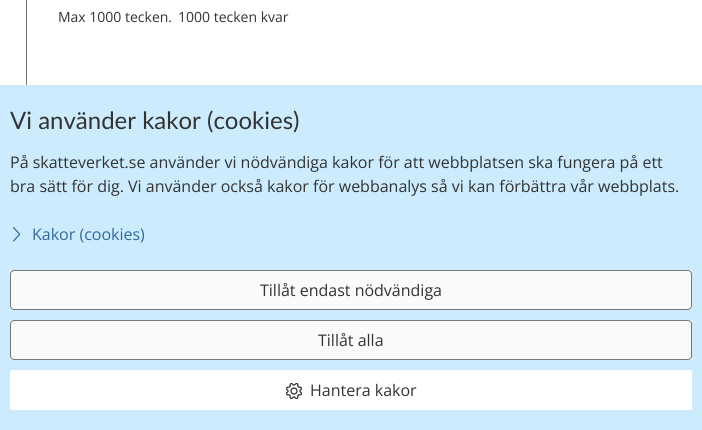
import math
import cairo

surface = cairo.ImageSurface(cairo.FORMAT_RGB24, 702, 430)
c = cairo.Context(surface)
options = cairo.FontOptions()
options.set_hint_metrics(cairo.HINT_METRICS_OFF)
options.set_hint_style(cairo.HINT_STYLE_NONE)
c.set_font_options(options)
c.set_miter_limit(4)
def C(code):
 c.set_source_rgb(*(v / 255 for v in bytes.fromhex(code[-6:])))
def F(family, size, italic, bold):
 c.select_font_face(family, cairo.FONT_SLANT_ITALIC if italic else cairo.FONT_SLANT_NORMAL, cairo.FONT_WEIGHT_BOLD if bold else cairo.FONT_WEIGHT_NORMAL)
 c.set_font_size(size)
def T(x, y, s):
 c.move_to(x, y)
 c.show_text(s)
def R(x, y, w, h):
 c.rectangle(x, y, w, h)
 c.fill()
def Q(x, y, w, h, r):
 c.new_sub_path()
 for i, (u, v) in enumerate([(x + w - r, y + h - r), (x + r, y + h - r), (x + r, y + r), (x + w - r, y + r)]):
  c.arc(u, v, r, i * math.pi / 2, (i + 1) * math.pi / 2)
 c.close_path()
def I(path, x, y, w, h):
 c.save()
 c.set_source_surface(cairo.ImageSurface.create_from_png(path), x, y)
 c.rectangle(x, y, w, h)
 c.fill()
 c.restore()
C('ffffff')
c.paint()
C('767676')
R(26,0,1,85)
F('Open Sans',14,0,0)
C('333333')
T(58,22,'Max 1000 tecken.')
T(178,22,'1000 tecken kvar')
C('ccecfd')
R(0,85,702,345)
F('Lato',24,0,0)
C('333333')
T(10,129,'Vi använder kakor (cookies)')
F('Open Sans',16,0,0)
T(10,168,'På skatteverket.se använder vi nödvändiga kakor för att webbplatsen ska fungera på ett')
T(10,192,'bra sätt för dig. Vi använder också kakor för webbanalys så vi kan förbättra vår webbplats.')
c.new_path()
c.move_to(13.5,227.5)
c.line_to(18.5,233)
c.curve_to(20,234.5,20,234,18.5,235.5)
c.line_to(13.5,241)
C('3069a1')
c.set_line_width(1.2)
c.set_line_cap(cairo.LINE_CAP_ROUND)
c.set_line_join(cairo.LINE_JOIN_ROUND)
c.stroke()
T(32,240,'Kakor (cookies)')
C('ffffff')
Q(10,270,682,40,2)
c.fill()
C('fafafa')
Q(10.5,270.5,681,39,3.5)
c.fill_preserve()
C('767676')
c.set_line_width(1)
c.set_line_cap(cairo.LINE_CAP_BUTT)
c.set_line_join(cairo.LINE_JOIN_MITER)
c.stroke()
C('333333')
T(260,296,'Tillåt endast nödvändiga')
C('ffffff')
Q(10,320,682,40,2)
c.fill()
C('fafafa')
Q(10.5,320.5,681,39,3.5)
c.fill_preserve()
C('767676')
c.stroke()
C('333333')
T(318,346,'Tillåt alla')
C('ffffff')
Q(10,370,682,40,2)
c.fill()
I('1.png',286,383,16,16)
C('333333')
T(310,396,'Hantera kakor')
surface.write_to_png('o.png')
